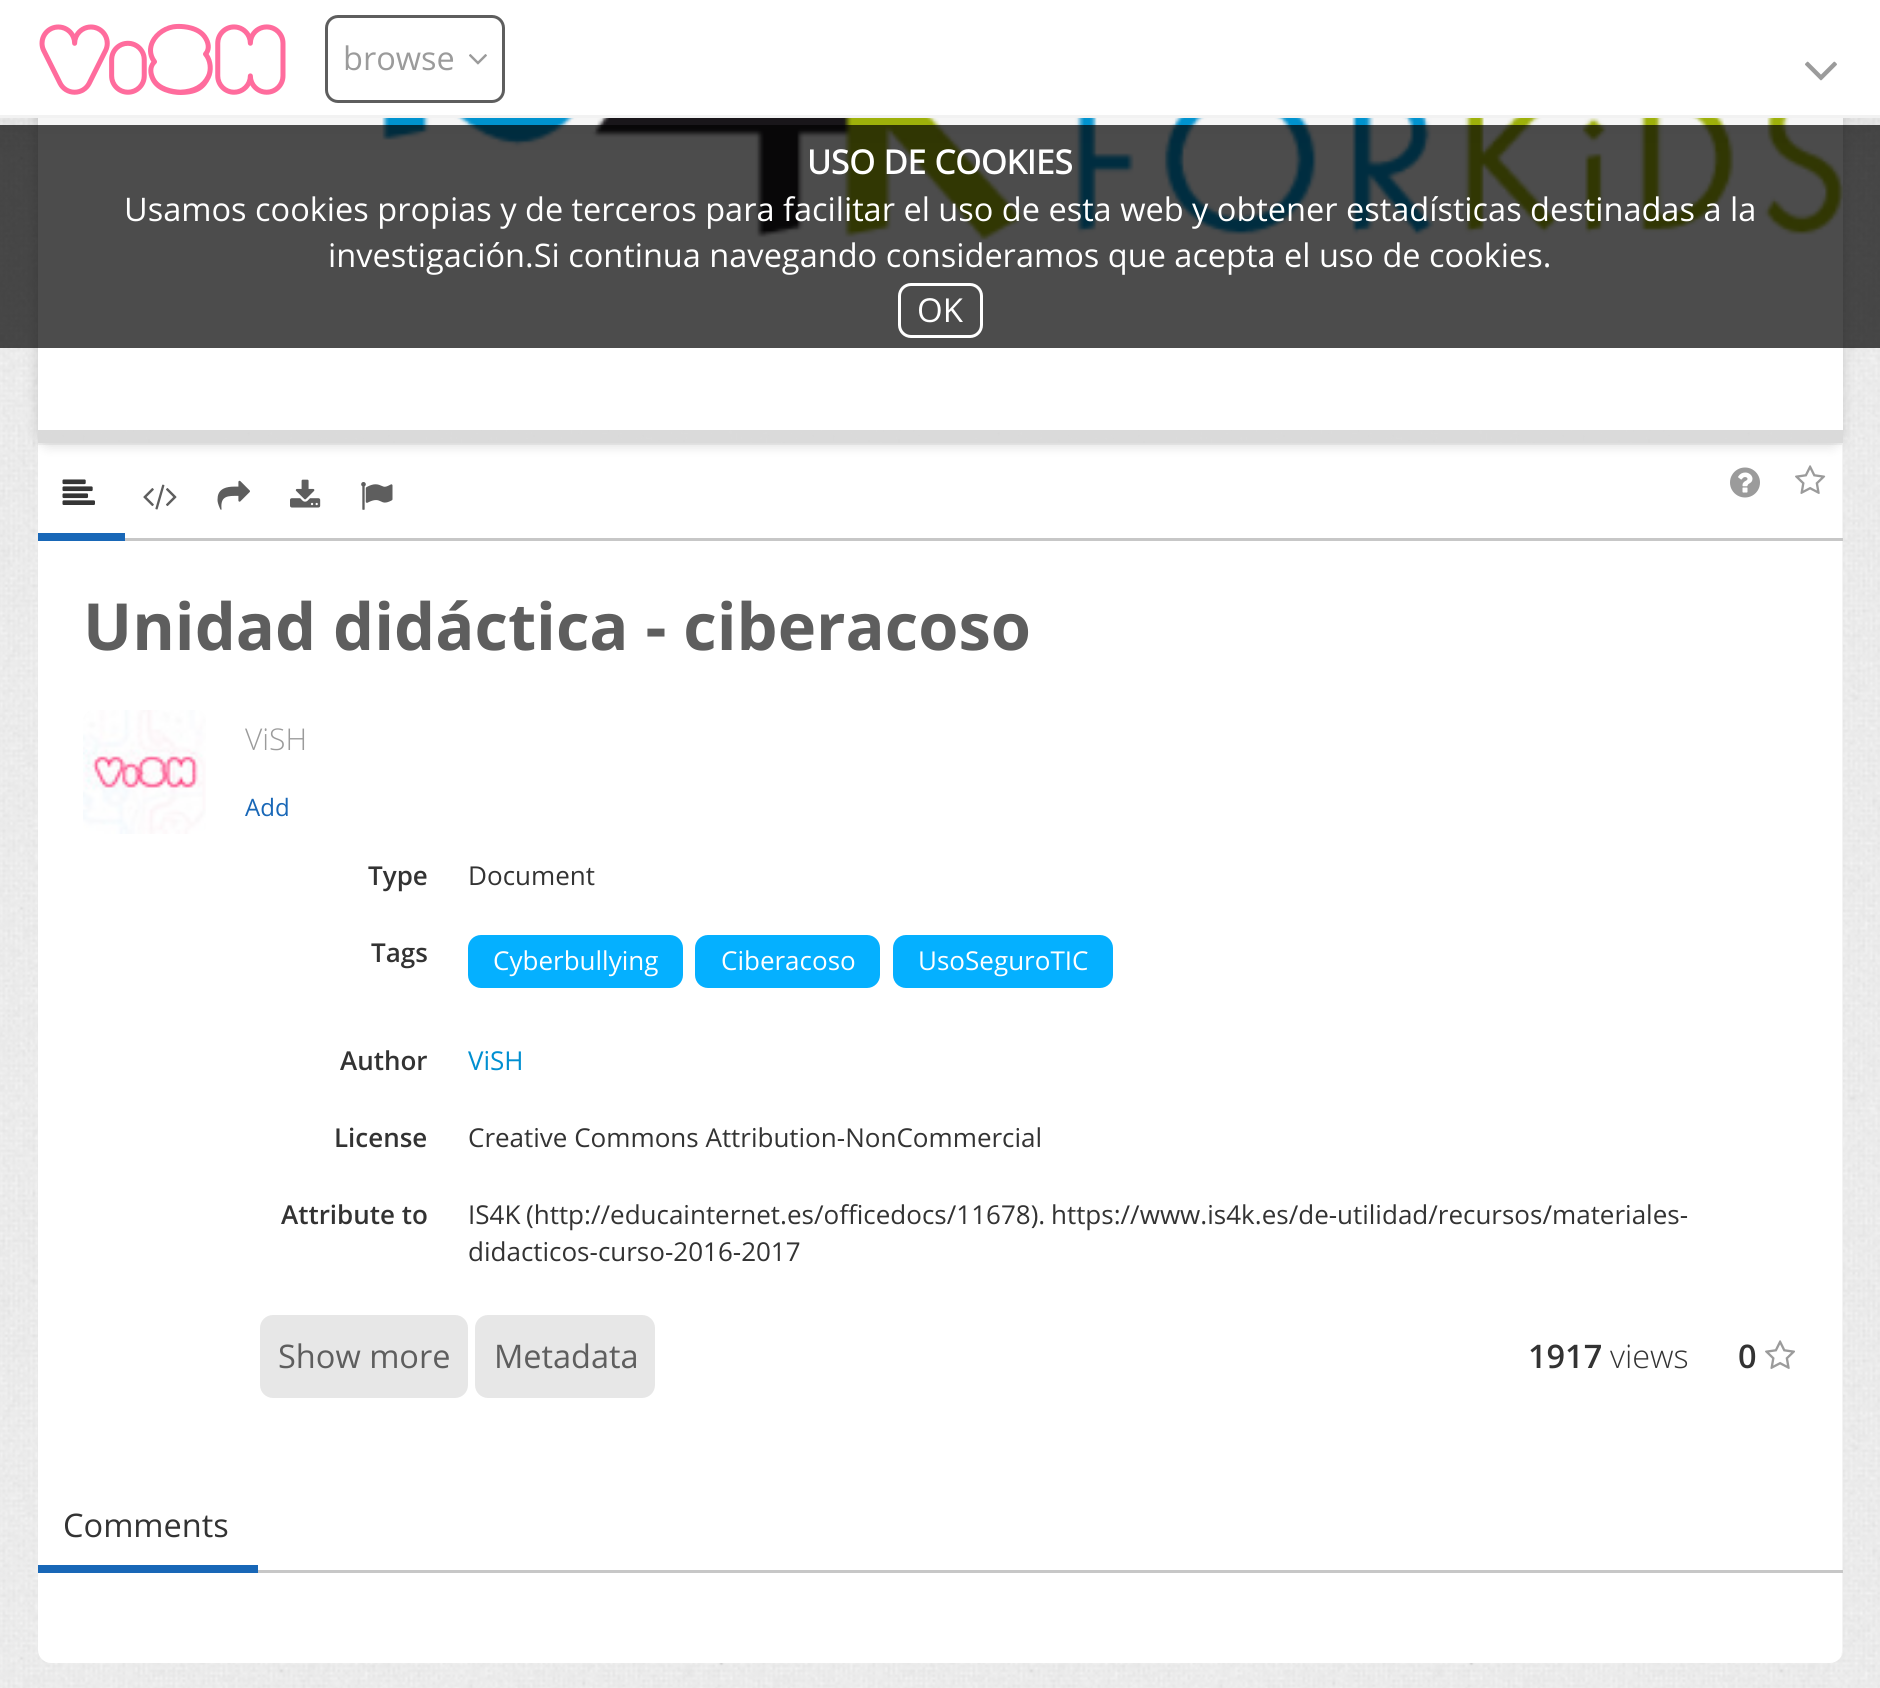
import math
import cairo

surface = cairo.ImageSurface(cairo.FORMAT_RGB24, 1880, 1688)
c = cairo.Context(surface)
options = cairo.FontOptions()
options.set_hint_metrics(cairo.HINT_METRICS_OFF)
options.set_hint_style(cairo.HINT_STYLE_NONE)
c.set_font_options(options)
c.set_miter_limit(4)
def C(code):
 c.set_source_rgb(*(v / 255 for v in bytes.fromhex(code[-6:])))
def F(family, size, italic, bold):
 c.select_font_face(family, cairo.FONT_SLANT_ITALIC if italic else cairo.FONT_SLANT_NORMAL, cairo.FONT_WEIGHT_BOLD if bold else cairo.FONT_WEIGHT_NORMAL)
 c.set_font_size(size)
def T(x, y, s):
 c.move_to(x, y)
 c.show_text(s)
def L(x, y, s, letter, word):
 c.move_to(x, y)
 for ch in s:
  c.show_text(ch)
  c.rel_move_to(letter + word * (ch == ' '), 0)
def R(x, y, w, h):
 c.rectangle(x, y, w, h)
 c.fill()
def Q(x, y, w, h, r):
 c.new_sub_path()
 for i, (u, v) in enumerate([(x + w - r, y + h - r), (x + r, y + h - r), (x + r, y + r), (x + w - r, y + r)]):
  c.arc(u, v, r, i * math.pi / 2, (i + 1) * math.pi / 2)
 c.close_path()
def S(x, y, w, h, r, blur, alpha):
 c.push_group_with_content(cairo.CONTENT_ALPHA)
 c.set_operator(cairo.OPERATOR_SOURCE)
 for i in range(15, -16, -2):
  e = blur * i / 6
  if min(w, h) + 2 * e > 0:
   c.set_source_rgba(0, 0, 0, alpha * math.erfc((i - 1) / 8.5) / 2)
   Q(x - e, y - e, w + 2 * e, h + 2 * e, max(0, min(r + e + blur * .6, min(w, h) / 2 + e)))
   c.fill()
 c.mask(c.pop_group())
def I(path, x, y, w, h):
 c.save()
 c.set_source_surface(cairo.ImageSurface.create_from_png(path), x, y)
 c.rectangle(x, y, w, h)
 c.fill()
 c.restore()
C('ffffff')
c.paint()
I('1.png',0,118,1880,1570)
C('ffffff')
c.new_path()
c.move_to(38,443)
c.line_to(1843,443)
c.line_to(1843,1650)
c.curve_to(1843,1657,1837,1663,1830,1663)
c.line_to(51,1663)
c.curve_to(44,1663,38,1657,38,1650)
c.close_path()
c.fill()
c.set_source_rgba(0,0,0,0.05)
c.new_path()
c.move_to(38,445)
c.line_to(1842,445)
c.line_to(1842,1652)
c.line_to(1841,1656)
c.curve_to(1842,1655,1843,1652,1843,1650)
c.line_to(1843,443)
c.line_to(38,443)
c.close_path()
c.fill()
c.save()
c.set_fill_rule(cairo.FILL_RULE_EVEN_ODD)
c.new_path()
c.move_to(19,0)
c.line_to(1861,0)
c.line_to(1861,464)
c.line_to(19,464)
c.close_path()
c.move_to(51,-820)
c.line_to(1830,-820)
c.curve_to(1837,-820,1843,-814,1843,-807)
c.line_to(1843,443)
c.line_to(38,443)
c.line_to(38,-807)
c.curve_to(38,-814,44,-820,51,-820)
c.close_path()
c.clip()
C('000000')
S(35,-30,1810,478,15,5,.1)
c.restore()
C('ffffff')
R(38,118,1805,312)
I('5.png',382,118,1461,122)
c.set_source_rgba(0,0,0,0.7)
R(0,125,1880,223)
C('000000')
S(0,-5,1880,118,0,25,.1)
C('ffffff')
R(0,0,1880,115)
C('f2f2f2')
R(0,115,1880,3)
I('2.png',39,23,247,72)
Q(326.5,16.5,177,85,11.5)
C('5e5e5e')
c.set_line_width(3)
c.stroke()
F('Open Sans',32.5,0,0)
C('9b9b9b')
T(343,70,'browse')
I('3.png',469,54,18,11)
I('4.png',1805,61,32,20)
c.set_source_rgba(0.847,0.847,0.847,0.9)
R(38,430,1805,13)
I('6.png',1795,465,31,29)
C('c7c7c7')
R(125,538,1718,3)
C('1867b7')
R(38,533,87,8)
I('7.png',62,479,33,26)
I('8.png',143,484,34,26)
I('9.png',217,480,33,30)
I('10.png',290,479,31,29)
I('11.png',361,482,32,28)
I('12.png',1730,467,30,31)
F('Open Sans',65,0,1)
C('5e5e5e')
T(83,650,'Unidad didáctica - ciberacoso')
I('13.png',83,710,123,124)
F('Open Sans Light',30,0,0)
C('9b9b9b')
T(245,750,'ViSH')
F('Open Sans',24,0,0)
C('1867b7')
T(245,816,'Add')
F('Open Sans SemiBold',26,0,0)
C('333333')
T(368,885,'Type')
F('Open Sans',26,0,0)
T(468,885,'Document')
F('Open Sans SemiBold',26,0,0)
T(371,962,'Tags')
C('05b0ff')
Q(468,935,215,53,13)
c.fill()
F('Open Sans',26,0,0)
C('ffffff')
T(493,970,'Cyberbullying')
C('05b0ff')
Q(695,935,185,53,13)
c.fill()
C('ffffff')
T(721,970,'Ciberacoso')
C('05b0ff')
Q(893,935,220,53,13)
c.fill()
C('ffffff')
T(918,970,'UsoSeguroTIC')
F('Open Sans SemiBold',26,0,0)
C('333333')
T(340,1070,'Author')
F('Open Sans',26,0,0)
C('008fd1')
T(468,1070,'ViSH')
F('Open Sans SemiBold',26,0,0)
C('333333')
T(334,1147,'License')
F('Open Sans',26,0,0)
T(468,1147,'Creative Commons Attribution-NonCommercial')
F('Open Sans SemiBold',26,0,0)
T(281,1224,'Attribute to')
F('Open Sans',26,0,0)
L(468,1224,'IS4K (http://educainternet.es/officedocs/11678). https://www.is4k.es/de-utilidad/recursos/materiales-',0,-1)
T(468,1261,'didacticos-curso-2016-2017')
C('e7e7e7')
Q(260,1315,208,83,13)
c.fill()
F('Open Sans',32.5,0,0)
C('5e5e5e')
T(278,1368,'Show more')
C('e7e7e7')
Q(475,1315,180,83,13)
c.fill()
C('5e5e5e')
T(494,1368,'Metadata')
F('Open Sans SemiBold',32.5,0,0)
C('333333')
T(1528,1368,'1917')
F('Open Sans Light',32.5,0,0)
T(1610,1368,'views')
F('Open Sans SemiBold',32.5,0,0)
T(1738,1368,'0')
I('14.png',1765,1340,30,29)
C('c7c7c7')
R(258,1570,1585,3)
C('1867b7')
R(38,1565,220,8)
F('Open Sans',32.5,0,0)
C('333333')
T(63,1537,'Comments')
F('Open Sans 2',33,0,1)
C('ffffff')
T(807,174,'USO DE COOKIES')
F('Open Sans',32.5,0,0)
T(124,221,'Usamos cookies propias y de terceros para facilitar el uso de esta web y obtener estadísticas destinadas a la')
T(328,267,'investigación.Si continua navegando consideramos que acepta el uso de cookies.')
Q(899.5,284.5,82,52,11.5)
c.stroke()
F('Open Sans',33,0,0)
T(917,322,'OK')
surface.write_to_png('o.png')
